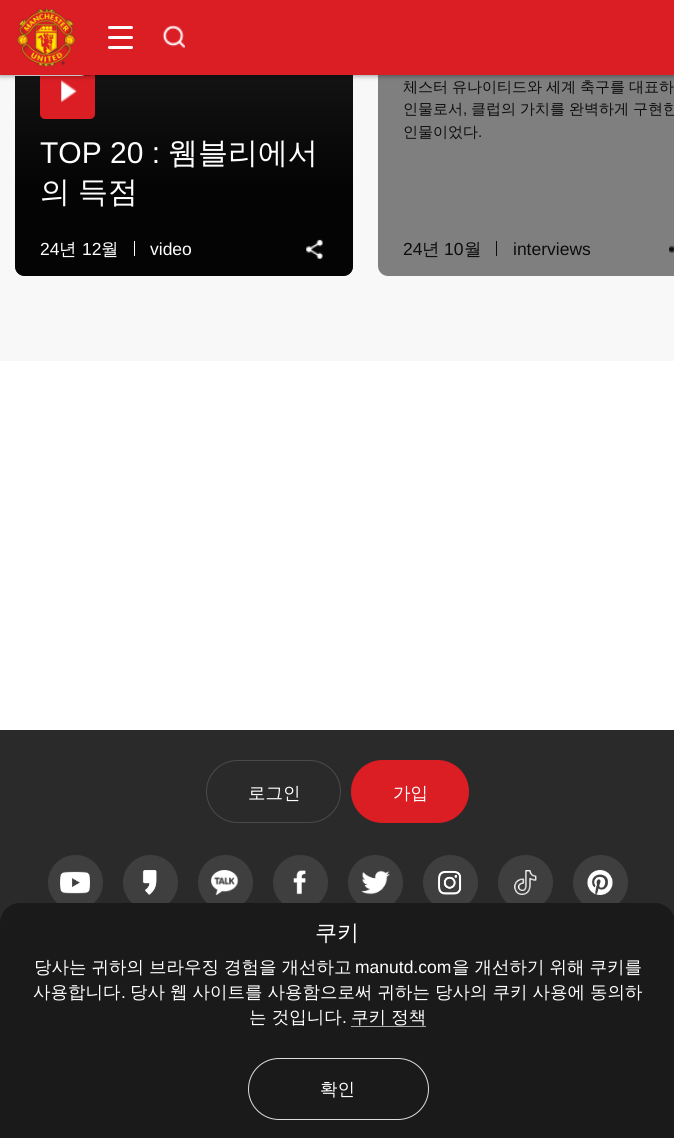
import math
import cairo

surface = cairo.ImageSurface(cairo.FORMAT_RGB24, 674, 1138)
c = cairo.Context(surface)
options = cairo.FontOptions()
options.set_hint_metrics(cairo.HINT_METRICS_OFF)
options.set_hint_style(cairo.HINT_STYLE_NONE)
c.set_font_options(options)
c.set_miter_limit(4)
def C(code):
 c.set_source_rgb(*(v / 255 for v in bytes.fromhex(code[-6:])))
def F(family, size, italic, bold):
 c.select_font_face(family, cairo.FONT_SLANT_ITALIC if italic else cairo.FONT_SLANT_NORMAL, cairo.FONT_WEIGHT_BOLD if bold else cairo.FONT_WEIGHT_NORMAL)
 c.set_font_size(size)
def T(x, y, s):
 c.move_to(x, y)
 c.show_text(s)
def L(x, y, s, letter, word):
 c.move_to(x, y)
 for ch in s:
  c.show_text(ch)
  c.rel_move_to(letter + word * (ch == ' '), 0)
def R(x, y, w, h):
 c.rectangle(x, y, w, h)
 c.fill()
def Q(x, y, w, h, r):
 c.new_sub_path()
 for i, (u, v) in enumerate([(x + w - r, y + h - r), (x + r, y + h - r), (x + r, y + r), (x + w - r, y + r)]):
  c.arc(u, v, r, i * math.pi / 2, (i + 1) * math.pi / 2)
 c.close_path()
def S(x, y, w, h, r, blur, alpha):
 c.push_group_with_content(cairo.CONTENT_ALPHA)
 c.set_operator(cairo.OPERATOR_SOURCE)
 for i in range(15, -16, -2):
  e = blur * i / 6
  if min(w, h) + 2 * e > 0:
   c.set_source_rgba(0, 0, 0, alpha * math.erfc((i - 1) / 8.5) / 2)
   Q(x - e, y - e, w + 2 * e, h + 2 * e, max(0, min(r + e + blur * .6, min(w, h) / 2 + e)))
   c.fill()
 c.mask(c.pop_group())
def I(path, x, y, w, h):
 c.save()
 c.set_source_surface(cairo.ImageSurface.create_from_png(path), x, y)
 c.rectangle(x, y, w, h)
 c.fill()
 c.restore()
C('ffffff')
c.paint()
C('f8f8f8')
R(0,75,674,286)
C('2b2b2b')
Q(15,-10,338,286,10)
c.fill()
gradient = cairo.LinearGradient(184,-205,184,282)
gradient.add_color_stop_rgba(.2,0,0,0,0)
gradient.add_color_stop_rgba(.8,0,0,0,.9)
c.set_source(gradient)
c.new_path()
c.move_to(25,-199)
c.curve_to(19,-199,15,-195,15,-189)
c.line_to(15,266)
c.curve_to(15,272,19,276,25,276)
c.line_to(343,276)
c.curve_to(349,276,353,272,353,266)
c.line_to(353,-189)
c.curve_to(353,-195,349,-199,343,-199)
c.close_path()
c.fill()
C('db1d24')
Q(40,64,55,55,5)
c.fill()
c.set_source_rgba(0,0,0,0.2)
R(80,75,10,1)
C('ffffff')
c.new_path()
c.move_to(15,1)
c.line_to(80,1)
c.curve_to(85.5,1,90,5.5,90,11)
c.line_to(90,66)
c.curve_to(90,71.5,85.5,76,80,76)
c.line_to(15,76)
c.close_path()
c.fill()
I('3.png',61,80,16,23)
c.new_path()
c.move_to(388,-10)
c.line_to(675,-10)
c.line_to(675,276)
c.line_to(388,276)
c.curve_to(382.5,276,378,271.5,378,266)
c.line_to(378,0)
c.curve_to(378,-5.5,382.5,-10,388,-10)
c.close_path()
c.fill()
F('WenQuanYi Zen Hei Medium',15,0,0)
C('1a1a1a')
L(403,92,'체스터 유나이티드와 세계 축구를 대표하',0,-.5)
T(403,114,'인물로서')
F('Liberation Sans',15,0,0)
T(463,114,',')
F('WenQuanYi Zen Hei Medium',15,0,0)
L(471,114,'클럽의 가치를 완벽하게 구현한',0,-.5)
T(403,137,'인물이었다')
F('Liberation Sans',15,0,0)
T(478,137,'.')
F('Liberation Sans',17.5,0,0)
T(403,255,'24')
F('WenQuanYi Zen Hei Medium',17.5,0,0)
T(422,255,'년')
F('Liberation Sans',17.5,0,0)
T(444,255,'10')
F('WenQuanYi Zen Hei Medium',17.5,0,0)
T(464,255,'월')
R(496,241,1,15)
F('Liberation Sans',17.5,0,0)
T(513,255,'interviews')
I('5.png',669,245,5,8)
c.set_source_rgba(0,0,0,0.5)
c.new_path()
c.move_to(388,-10)
c.line_to(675,-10)
c.line_to(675,276)
c.line_to(388,276)
c.curve_to(382.5,276,378,271.5,378,266)
c.line_to(378,0)
c.curve_to(378,-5.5,382.5,-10,388,-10)
c.close_path()
c.fill()
C('000000')
S(0,1,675,75,0,2.5,.4)
C('db1d24')
R(0,0,674,75)
I('1.png',17,8,58,59)
C('ffffff')
Q(108,26,25,3,1.5)
c.fill()
Q(108,36,25,3,1.5)
c.fill()
Q(108,46,25,3,1.5)
c.fill()
I('2.png',162,25,23,23)
F('Liberation Sans',30,0,0)
T(40,163,'TOP 20 :')
F('WenQuanYi Zen Hei Medium',30,0,0)
T(168,163,'웸블리에서')
L(40,202,'의 득점',0,-1)
F('Liberation Sans',17.5,0,0)
T(40,255,'24')
F('WenQuanYi Zen Hei Medium',17.5,0,0)
T(59,255,'년')
F('Liberation Sans',17.5,0,0)
T(82,255,'12')
F('WenQuanYi Zen Hei Medium',17.5,0,0)
T(101,255,'월')
R(134,241,1,15)
F('Liberation Sans',17.5,0,0)
T(150,255,'video')
I('4.png',306,239,17,20)
C('2a2a2a')
R(0,730,674,193)
Q(206.5,760.5,134,62,31)
C('4a4a4a')
c.set_line_width(1)
c.stroke()
F('WenQuanYi Zen Hei Medium',17.5,0,0)
C('ffffff')
T(248,799,'로그인')
C('db1d24')
Q(351,760,118,63,31.5)
c.fill()
Q(351.5,760.5,117,62,31)
c.set_source_rgba(0.859,0.114,0.141,0.15)
c.stroke()
C('ffffff')
T(393,799,'가입')
C('3f3f3f')
c.new_path()
c.arc(75.5,882.5,27.5,0,2 * math.pi)
c.fill()
I('6.png',60,871,30,23)
c.arc(150.5,882.5,27.5,0,2 * math.pi)
c.fill()
I('7.png',142,870,15,25)
c.arc(225.5,882.5,27.5,0,2 * math.pi)
c.fill()
I('8.png',211,870,28,25)
c.arc(300.5,882.5,27.5,0,2 * math.pi)
c.fill()
I('9.png',293,870,13,25)
c.arc(375.5,882.5,27.5,0,2 * math.pi)
c.fill()
I('10.png',361,870,29,25)
c.arc(450.5,882.5,27.5,0,2 * math.pi)
c.fill()
I('11.png',438,870,24,25)
c.arc(525.5,882.5,27.5,0,2 * math.pi)
c.fill()
I('12.png',514,870,23,25)
c.arc(600.5,882.5,27.5,0,2 * math.pi)
c.fill()
I('13.png',587,870,26,25)
C('1a1a1a')
c.new_path()
c.move_to(20,903)
c.line_to(655,903)
c.curve_to(666,903,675,912,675,923)
c.line_to(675,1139)
c.line_to(0,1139)
c.line_to(0,923)
c.curve_to(0,912,9,903,20,903)
c.close_path()
c.fill()
F('WenQuanYi Zen Hei Medium',22,0,0)
C('ffffff')
T(315,940,'쿠키')
F('WenQuanYi Zen Hei Medium',17.5,0,0)
L(34,973,'당사는 귀하의 브라우징 경험을 개선하고',0,-.25)
F('Liberation Sans',17.5,0,0)
T(355,973,'manutd.com')
F('WenQuanYi Zen Hei Medium',17.5,0,0)
L(452,973,'을 개선하기 위해 쿠키를',0,-.25)
T(33,998,'사용합니다')
F('Liberation Sans',17.5,0,0)
T(121,998,'.')
F('WenQuanYi Zen Hei Medium',17.5,0,0)
L(130,998,'당사 웹 사이트를 사용함으로써 귀하는 당사의 쿠키 사용에 동의하',0,-.25)
T(249,1023,'는 것입니다')
F('Liberation Sans',17.5,0,0)
T(342,1023,'.')
F('WenQuanYi Zen Hei Medium',17.5,0,0)
T(351,1023,'쿠키 정책')
C('a8a8a8')
R(351,1026,75,1)
Q(248.5,1058.5,180,61,30.5)
C('dddddd')
c.stroke()
C('ffffff')
T(320,1095,'확인')
surface.write_to_png('o.png')
